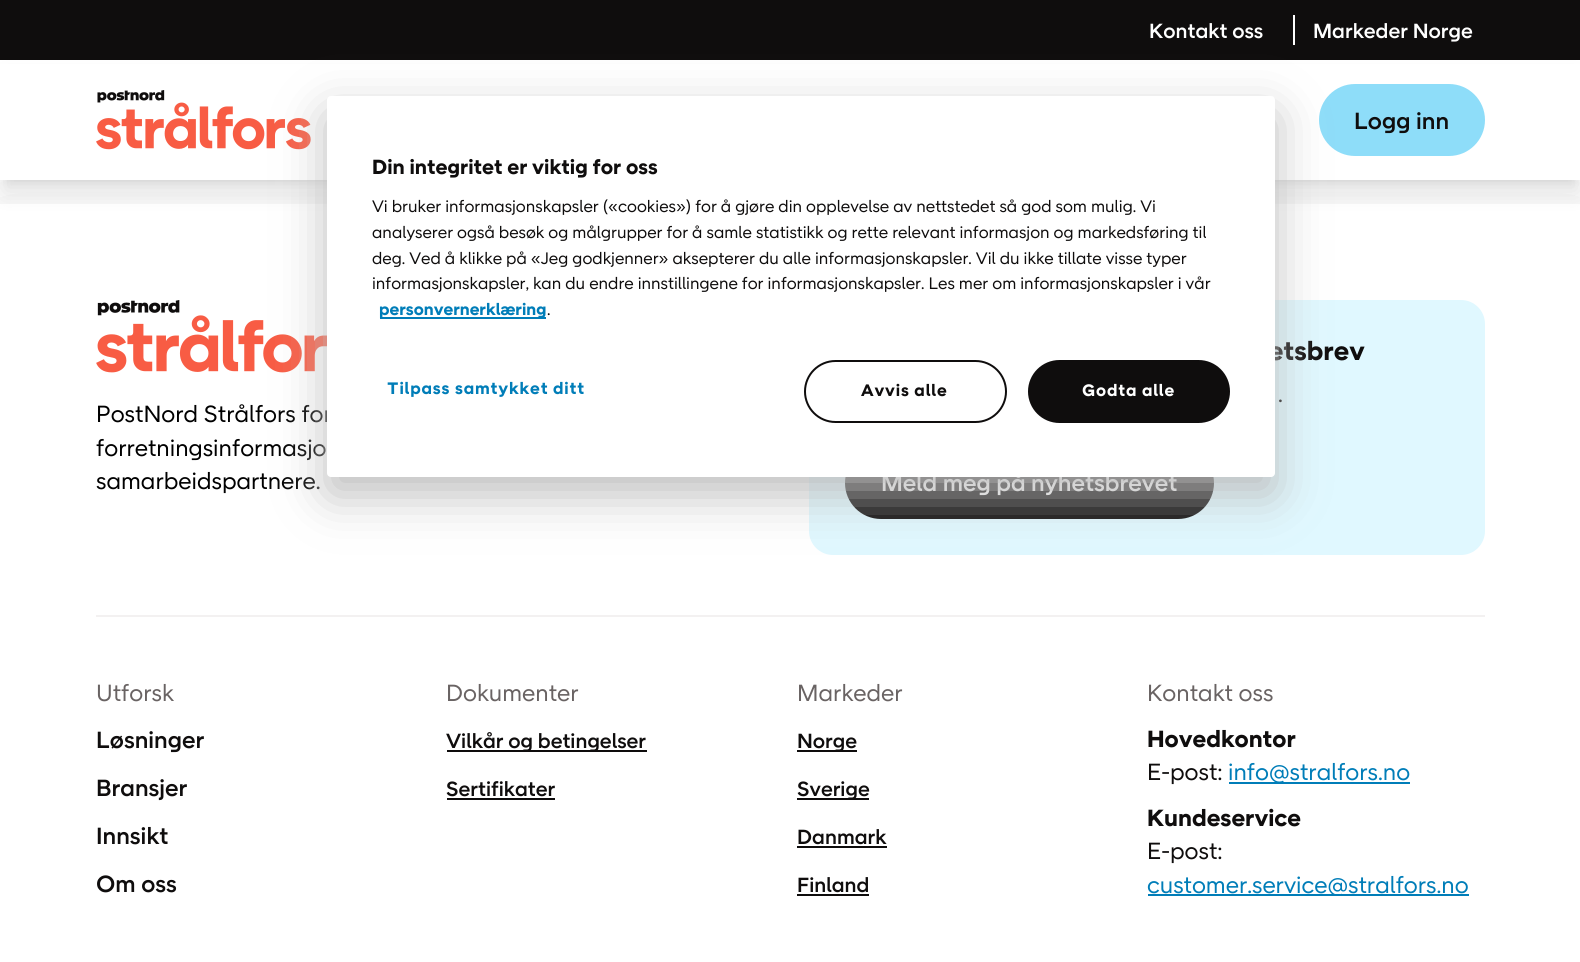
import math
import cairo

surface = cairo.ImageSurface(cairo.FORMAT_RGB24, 1580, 962)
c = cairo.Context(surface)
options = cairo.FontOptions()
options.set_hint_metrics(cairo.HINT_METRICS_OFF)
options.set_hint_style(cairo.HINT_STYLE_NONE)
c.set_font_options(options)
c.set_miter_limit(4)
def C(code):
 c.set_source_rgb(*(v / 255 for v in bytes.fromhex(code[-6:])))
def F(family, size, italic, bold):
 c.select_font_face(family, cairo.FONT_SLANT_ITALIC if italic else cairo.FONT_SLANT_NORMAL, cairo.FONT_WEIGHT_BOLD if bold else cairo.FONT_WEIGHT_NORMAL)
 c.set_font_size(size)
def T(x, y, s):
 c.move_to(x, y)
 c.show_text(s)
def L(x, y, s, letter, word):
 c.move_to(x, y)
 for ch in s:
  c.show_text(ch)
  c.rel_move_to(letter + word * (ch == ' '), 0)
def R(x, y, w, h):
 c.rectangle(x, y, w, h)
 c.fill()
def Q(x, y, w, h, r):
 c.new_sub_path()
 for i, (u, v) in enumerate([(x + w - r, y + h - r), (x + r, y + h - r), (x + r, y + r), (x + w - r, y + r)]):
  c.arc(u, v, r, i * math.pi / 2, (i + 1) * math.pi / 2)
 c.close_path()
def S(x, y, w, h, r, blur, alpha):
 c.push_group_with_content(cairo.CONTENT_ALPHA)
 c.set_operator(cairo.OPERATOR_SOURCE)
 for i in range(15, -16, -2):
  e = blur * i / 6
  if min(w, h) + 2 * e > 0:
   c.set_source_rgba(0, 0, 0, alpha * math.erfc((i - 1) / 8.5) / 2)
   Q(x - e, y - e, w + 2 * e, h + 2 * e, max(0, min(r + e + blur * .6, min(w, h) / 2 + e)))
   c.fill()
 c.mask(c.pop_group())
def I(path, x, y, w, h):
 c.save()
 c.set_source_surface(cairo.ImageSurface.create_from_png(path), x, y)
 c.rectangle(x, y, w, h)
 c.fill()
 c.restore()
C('ffffff')
c.paint()
C('000000')
S(6,72,1569,108,0,4.5,.1)
S(0,243,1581,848,0,43,.22)
C('ffffff')
R(0,204,1580,758)
C('000000')
S(5,80,1572,111,0,11,.1)
C('0f0d0d')
R(0,0,1580,60)
F('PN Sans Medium',21,0,0)
C('ffffff')
T(1149,38,'Kontakt oss')
R(1293,15,2,30)
T(1313,38,'Markeder Norge')
R(0,64,1580,116)
I('1.png',96,90,215,60)
C('8eddf9')
Q(1319,84,166,72,36)
c.fill()
F('PN Sans Medium',24,0,0)
C('0f0d0d')
T(1354,129,'Logg inn')
I('2.png',96,300,231,73)
F('PN Sans',24,0,0)
C('000000')
T(96,422,'PostNord Strålfors for')
T(96,456,'forretningsinformasjo')
T(96,489,'samarbeidspartnere.')
C('e0f8ff')
Q(809,300,676,255,24)
c.fill()
F('PN Sans',27,0,1)
C('0f0d0d')
T(1268,360,'etsbrev')
F('PN Sans',24,0,0)
T(1278,402,'.')
Q(845,447,369,72,36)
c.fill()
F('PN Sans Medium',24,0,0)
C('ffffff')
T(881,491,'Meld meg på nyhetsbrevet')
C('f3f1f1')
R(96,615,1389,2)
F('PN Sans',24,0,0)
C('696363')
T(96,701,'Utforsk')
F('PN Sans Medium',24,0,0)
C('0f0d0d')
T(96,748,'Løsninger')
T(96,796,'Bransjer')
T(96,844,'Innsikt')
T(96,892,'Om oss')
F('PN Sans',24,0,0)
C('696363')
T(446,701,'Dokumenter')
C('0e0c0c')
R(447,750,200,2)
F('PN Sans Medium',21,0,0)
C('0f0d0d')
T(446,748,'Vilkår og betingelser')
T(446,796,'Sertifikater')
C('0e0c0c')
R(447,798,108,2)
F('PN Sans',24,0,0)
C('696363')
T(797,701,'Markeder')
C('0e0c0c')
R(797,750,60,2)
F('PN Sans Medium',21,0,0)
C('0f0d0d')
T(797,748,'Norge')
C('0e0c0c')
R(797,798,72,2)
C('0f0d0d')
T(797,796,'Sverige')
T(797,844,'Danmark')
C('0e0c0c')
R(797,846,90,2)
C('0f0d0d')
T(797,892,'Finland')
C('0e0c0c')
R(797,894,72,2)
F('PN Sans',24,0,0)
C('696363')
T(1147,701,'Kontakt oss')
F('PN Sans',24,0,1)
C('0f0d0d')
T(1147,747,'Hovedkontor')
F('PN Sans',24,0,0)
T(1147,780,'E-post:')
C('007db8')
R(1229,782,181,2)
T(1228,780,'info@stralfors.no')
F('PN Sans',24,0,1)
C('0f0d0d')
T(1147,826,'Kundeservice')
F('PN Sans',24,0,0)
T(1147,859,'E-post:')
C('007db8')
R(1148,894,321,2)
T(1147,893,'customer.service@stralfors.no')
C('bebebe')
S(327,114,948,381,4,24,1)
C('ffffff')
Q(327,96,948,381,4)
c.fill()
F('PN Sans',21,0,1)
C('0f0d0d')
T(372,174,'Din integritet er viktig for oss')
F('PN Sans',17.05,0,0)
T(372,212,'Vi bruker informasjonskapsler («cookies») for å gjøre din opplevelse av nettstedet så god som mulig. Vi')
T(372,238,'analyserer også besøk og målgrupper for å samle statistikk og rette relevant informasjon og markedsføring til')
T(372,264,'deg. Ved å klikke på «Jeg godkjenner» aksepterer du alle informasjonskapsler. Vil du ikke tillate visse typer')
T(372,289,'informasjonskapsler, kan du endre innstillingene for informasjonskapsler. Les mer om informasjonskapsler i vår')
C('007db8')
R(380,317,166,2)
F('PN Sans',17.05,0,1)
T(379,315,'personvernerklæring')
F('PN Sans',17.05,0,0)
C('0f0d0d')
T(547,315,'.')
F('PN Sans',17.05,0,1)
C('007db8')
L(387,394,'Tilpass samtykket ditt',.85,0)
Q(805,361,201,61,30.5)
C('0f0d0d')
c.stroke()
L(861,396,'Avvis alle',.85,0)
Q(1029,361,200,61,30.5)
c.fill_preserve()
c.stroke()
C('ffffff')
L(1082,396,'Godta alle',.85,0)
surface.write_to_png('o.png')
